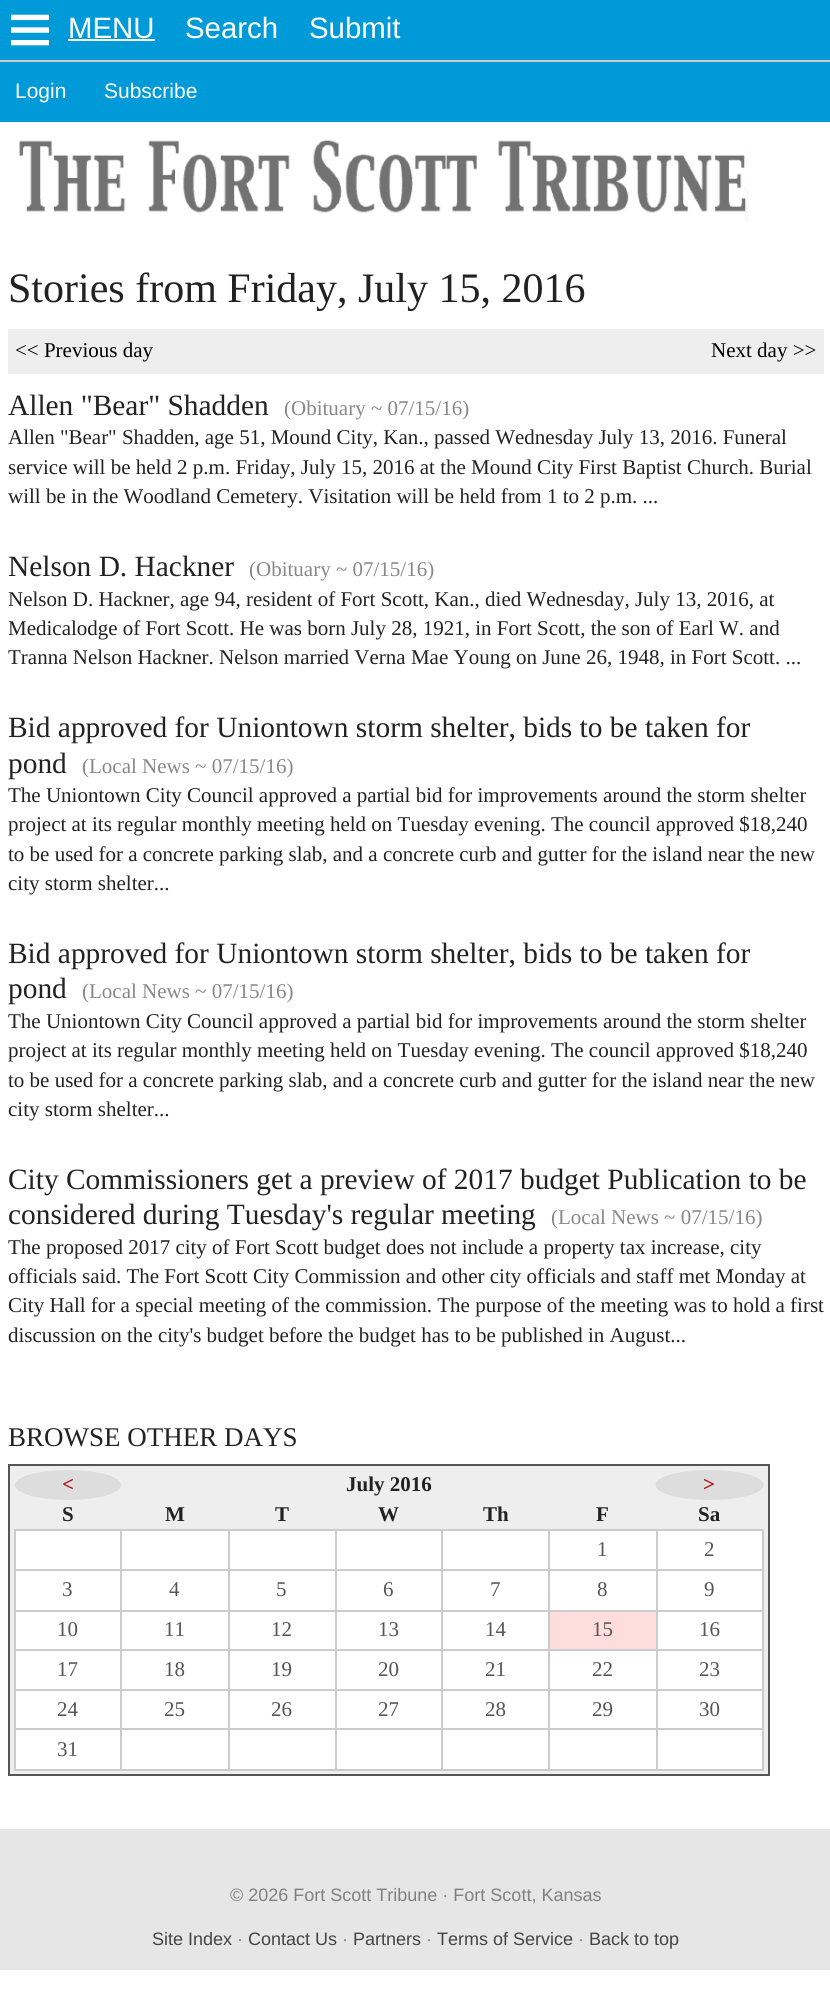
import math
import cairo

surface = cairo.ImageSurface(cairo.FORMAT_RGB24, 830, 2010)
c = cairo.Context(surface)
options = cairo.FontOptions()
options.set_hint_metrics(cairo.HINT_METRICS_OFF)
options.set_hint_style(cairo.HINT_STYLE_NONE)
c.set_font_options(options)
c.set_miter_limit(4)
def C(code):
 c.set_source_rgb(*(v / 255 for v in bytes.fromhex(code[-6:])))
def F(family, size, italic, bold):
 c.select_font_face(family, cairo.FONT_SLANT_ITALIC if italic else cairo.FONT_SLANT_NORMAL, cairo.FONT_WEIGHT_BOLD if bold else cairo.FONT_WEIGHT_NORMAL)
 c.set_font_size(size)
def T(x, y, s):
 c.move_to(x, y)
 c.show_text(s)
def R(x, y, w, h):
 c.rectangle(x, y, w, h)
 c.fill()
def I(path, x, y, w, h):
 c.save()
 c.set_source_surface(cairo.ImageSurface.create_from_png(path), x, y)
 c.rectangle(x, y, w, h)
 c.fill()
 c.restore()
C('ffffff')
c.paint()
C('009ad9')
R(0,0,830,122)
I('1.png',11,14,38,32)
F('Liberation Sans',29.4,0,0)
C('ffffff')
T(68,38,'MENU')
R(68,39,87,2)
T(185,38,'Search')
T(309,38,'Submit')
C('cccccc')
R(0,60,830,2)
F('Liberation Sans',21,0,0)
C('ffffff')
T(15,98,'Login')
T(104,98,'Subscribe')
I('2.png',19,140,730,83)
F('Liberation Serif',42,0,0)
C('222222')
T(8,302,'Stories from Friday, July 15, 2016')
C('eeeeee')
R(8,329,816,45)
F('Liberation Serif',21,0,0)
C('000000')
T(15,357,'<< Previous day')
T(711,357,'Next day >>')
F('Liberation Serif',29.4,0,0)
C('222222')
T(8,415,'Allen "Bear" Shadden')
F('Liberation Serif',21,0,0)
C('888888')
T(284,415,'(Obituary ~ 07/15/16)')
C('222222')
T(8,444,'Allen "Bear" Shadden, age 51, Mound City, Kan., passed Wednesday July 13, 2016. Funeral')
T(8,474,'service will be held 2 p.m. Friday, July 15, 2016 at the Mound City First Baptist Church. Burial')
T(8,503,'will be in the Woodland Cemetery. Visitation will be held from 1 to 2 p.m. ...')
F('Liberation Serif',29.4,0,0)
T(8,576,'Nelson D. Hackner')
F('Liberation Serif',21,0,0)
C('888888')
T(249,576,'(Obituary ~ 07/15/16)')
C('222222')
T(8,606,'Nelson D. Hackner, age 94, resident of Fort Scott, Kan., died Wednesday, July 13, 2016, at')
T(8,635,'Medicalodge of Fort Scott. He was born July 28, 1921, in Fort Scott, the son of Earl W. and')
T(8,664,'Tranna Nelson Hackner. Nelson married Verna Mae Young on June 26, 1948, in Fort Scott. ...')
F('Liberation Serif',29.4,0,0)
T(8,737,'Bid approved for Uniontown storm shelter, bids to be taken for')
T(8,773,'pond')
F('Liberation Serif',21,0,0)
C('888888')
T(82,773,'(Local News ~ 07/15/16)')
C('222222')
T(8,802,'The Uniontown City Council approved a partial bid for improvements around the storm shelter')
T(8,831,'project at its regular monthly meeting held on Tuesday evening. The council approved $18,240')
T(8,861,'to be used for a concrete parking slab, and a concrete curb and gutter for the island near the new')
T(8,890,'city storm shelter...')
F('Liberation Serif',29.4,0,0)
T(8,963,'Bid approved for Uniontown storm shelter, bids to be taken for')
T(8,998,'pond')
F('Liberation Serif',21,0,0)
C('888888')
T(82,998,'(Local News ~ 07/15/16)')
C('222222')
T(8,1028,'The Uniontown City Council approved a partial bid for improvements around the storm shelter')
T(8,1057,'project at its regular monthly meeting held on Tuesday evening. The council approved $18,240')
T(8,1087,'to be used for a concrete parking slab, and a concrete curb and gutter for the island near the new')
T(8,1116,'city storm shelter...')
F('Liberation Serif',29.4,0,0)
T(8,1189,'City Commissioners get a preview of 2017 budget Publication to be')
T(8,1224,'considered during Tuesday\'s regular meeting')
F('Liberation Serif',21,0,0)
C('888888')
T(551,1224,'(Local News ~ 07/15/16)')
C('222222')
T(8,1254,'The proposed 2017 city of Fort Scott budget does not include a property tax increase, city')
T(8,1283,'officials said. The Fort Scott City Commission and other city officials and staff met Monday at')
T(8,1312,'City Hall for a special meeting of the commission. The purpose of the meeting was to hold a first')
T(8,1342,'discussion on the city\'s budget before the budget has to be published in August...')
F('Liberation Serif',27,0,0)
T(8,1446,'BROWSE OTHER DAYS')
C('eeeeee')
c.rectangle(9,1465,760,310)
c.fill_preserve()
C('555555')
c.stroke()
C('dddddd')
c.new_path()
c.move_to(68,1470)
c.curve_to(97.5,1470,121,1476.5,121,1485)
c.curve_to(121,1493.5,97.5,1500,68,1500)
c.curve_to(38.5,1500,15,1493.5,15,1485)
c.curve_to(15,1476.5,38.5,1470,68,1470)
c.close_path()
c.fill()
F('Liberation Serif',21,0,1)
C('aa1111')
T(62,1491,'<')
C('222222')
T(346,1491,'July 2016')
C('dddddd')
c.new_path()
c.move_to(709.5,1470)
c.curve_to(739.5,1470,763.5,1476.5,763.5,1485)
c.curve_to(763.5,1493.5,739.5,1500,709.5,1500)
c.curve_to(679.5,1500,655.5,1493.5,655.5,1485)
c.curve_to(655.5,1476.5,679.5,1470,709.5,1470)
c.close_path()
c.fill()
C('aa1111')
T(703,1491,'>')
C('222222')
T(62,1521,'S')
T(165,1521,'M')
T(275,1521,'T')
T(378,1521,'W')
T(483,1521,'Th')
T(596,1521,'F')
T(698,1521,'Sa')
C('ffffff')
R(16,1531,746,238)
C('cccccc')
R(656,1529,108,2)
R(656,1569,108,2)
R(656,1610,108,2)
R(656,1649,108,2)
R(656,1689,108,2)
R(656,1728,108,2)
R(762,1728,2,42)
R(656,1769,108,2)
R(656,1728,2,42)
R(548,1728,109,2)
R(656,1689,2,41)
R(548,1689,109,2)
R(656,1649,2,42)
R(548,1649,109,2)
R(656,1610,2,40)
R(548,1610,109,2)
R(656,1569,2,42)
R(548,1569,109,2)
R(656,1529,2,42)
R(548,1529,109,2)
R(548,1769,109,2)
R(548,1728,2,42)
R(441,1728,108,2)
R(548,1689,2,41)
R(441,1689,108,2)
R(548,1649,2,42)
R(441,1649,108,2)
R(548,1610,2,40)
R(441,1610,108,2)
R(548,1569,2,42)
R(441,1569,108,2)
R(548,1529,2,42)
R(441,1529,108,2)
R(441,1769,108,2)
R(441,1728,2,42)
R(335,1728,108,2)
R(441,1689,2,41)
R(335,1689,108,2)
R(441,1649,2,42)
R(335,1649,108,2)
R(441,1610,2,40)
R(335,1610,108,2)
R(441,1569,2,42)
R(335,1569,108,2)
R(441,1529,2,42)
R(335,1529,108,2)
R(335,1769,108,2)
R(335,1728,2,42)
R(228,1728,108,2)
R(335,1689,2,41)
R(228,1689,108,2)
R(335,1649,2,42)
R(228,1649,108,2)
R(335,1610,2,40)
R(228,1610,108,2)
R(335,1569,2,42)
R(228,1569,108,2)
R(335,1529,2,42)
R(228,1529,108,2)
R(228,1769,108,2)
R(228,1728,2,42)
R(120,1728,110,2)
R(228,1689,2,41)
R(120,1689,110,2)
R(228,1649,2,42)
R(120,1649,110,2)
R(228,1610,2,40)
R(120,1610,110,2)
R(228,1569,2,42)
R(120,1569,110,2)
R(228,1529,2,42)
R(120,1529,110,2)
R(120,1769,110,2)
R(120,1728,2,42)
R(14,1728,108,2)
R(120,1689,2,41)
R(14,1689,108,2)
R(120,1649,2,42)
R(14,1649,108,2)
R(120,1610,2,40)
R(14,1610,108,2)
R(120,1569,2,42)
R(14,1569,108,2)
R(120,1529,2,42)
R(14,1529,108,2)
R(14,1769,108,2)
R(14,1728,2,42)
R(14,1689,2,41)
R(14,1649,2,42)
R(14,1610,2,40)
R(14,1569,2,42)
R(14,1529,2,42)
F('Liberation Serif',21,0,0)
C('555555')
T(597,1556,'1')
C('cccccc')
R(762,1689,2,41)
R(762,1649,2,42)
R(762,1610,2,40)
R(762,1569,2,42)
R(762,1529,2,42)
C('555555')
T(704,1556,'2')
T(62,1596,'3')
T(169,1596,'4')
T(276,1596,'5')
T(383,1596,'6')
T(490,1596,'7')
T(597,1596,'8')
T(704,1596,'9')
T(57,1636,'10')
T(164,1636,'11')
T(271,1636,'12')
T(378,1636,'13')
T(485,1636,'14')
C('ffdddd')
R(550,1612,106,37)
C('555555')
T(592,1636,'15')
T(699,1636,'16')
T(57,1676,'17')
T(164,1676,'18')
T(271,1676,'19')
T(378,1676,'20')
T(485,1676,'21')
T(592,1676,'22')
T(699,1676,'23')
T(57,1716,'24')
T(164,1716,'25')
T(271,1716,'26')
T(378,1716,'27')
T(485,1716,'28')
T(592,1716,'29')
T(699,1716,'30')
T(57,1756,'31')
C('e6e6e6')
R(0,1829,830,141)
F('Liberation Sans',18,0,0)
C('808080')
T(230,1901,'© 2026 Fort Scott Tribune · Fort Scott, Kansas')
C('444444')
T(152,1945,'Site Index')
C('808080')
T(237,1945,'·')
C('444444')
T(248,1945,'Contact Us')
C('808080')
T(342,1945,'·')
C('444444')
T(353,1945,'Partners')
C('808080')
T(426,1945,'·')
C('444444')
T(437,1945,'Terms of Service')
C('808080')
T(578,1945,'·')
C('444444')
T(589,1945,'Back to top')
surface.write_to_png('o.png')
